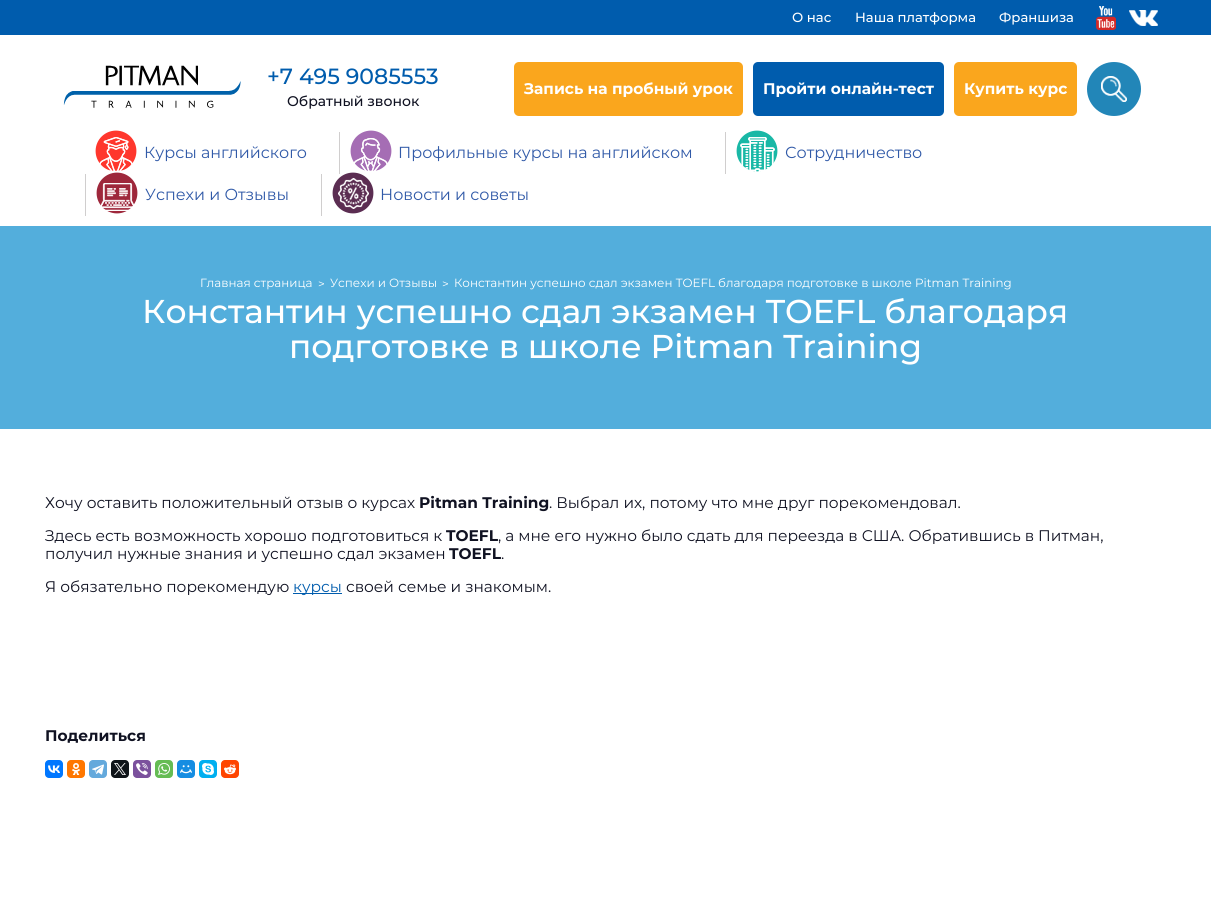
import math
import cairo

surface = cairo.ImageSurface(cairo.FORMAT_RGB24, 1211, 899)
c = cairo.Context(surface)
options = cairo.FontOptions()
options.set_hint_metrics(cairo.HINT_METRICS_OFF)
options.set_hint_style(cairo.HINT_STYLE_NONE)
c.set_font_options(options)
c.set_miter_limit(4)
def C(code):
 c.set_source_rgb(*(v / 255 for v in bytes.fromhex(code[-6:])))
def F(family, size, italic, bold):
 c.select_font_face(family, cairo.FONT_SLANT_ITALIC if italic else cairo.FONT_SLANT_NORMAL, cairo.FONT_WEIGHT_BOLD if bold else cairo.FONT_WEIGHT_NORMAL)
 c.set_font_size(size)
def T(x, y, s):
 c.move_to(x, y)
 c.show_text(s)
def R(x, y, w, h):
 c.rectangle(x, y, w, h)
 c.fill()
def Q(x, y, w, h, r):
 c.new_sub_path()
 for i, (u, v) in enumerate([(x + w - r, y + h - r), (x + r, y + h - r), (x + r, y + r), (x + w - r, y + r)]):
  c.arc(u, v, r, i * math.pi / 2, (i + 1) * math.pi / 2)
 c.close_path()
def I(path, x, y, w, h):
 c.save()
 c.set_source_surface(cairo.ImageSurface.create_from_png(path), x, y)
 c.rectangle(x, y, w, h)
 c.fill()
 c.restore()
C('ffffff')
c.paint()
C('005cad')
R(0,0,1211,35)
F('Montserrat Medium',13.25,0,0)
C('ffffff')
T(792,22,'О нас')
T(855,22,'Наша платформа')
T(999,22,'Франшиза')
I('1.png',1096,6,20,24)
I('2.png',1129,10,29,16)
I('3.png',63,65,178,43)
F('Montserrat Medium',22,0,0)
C('005cad')
T(267,84,'+7 495 9085553')
F('Montserrat Medium',14,0,0)
C('101222')
T(287,106,'Обратный звонок')
C('faa61d')
Q(514,62,229,54,5)
c.fill()
F('Montserrat',15.4,0,1)
C('ffffff')
T(524,94,'Запись на пробный урок')
C('005cad')
Q(753,62,191,54,5)
c.fill()
C('ffffff')
T(763,94,'Пройти онлайн-тест')
C('faa61d')
Q(954,62,123,54,5)
c.fill()
C('ffffff')
T(964,94,'Купить курс')
C('2286b8')
c.new_path()
c.arc(1114,89,27,0,2 * math.pi)
c.fill()
I('4.png',1101,76,26,26)
I('5.png',95,130,42,41)
F('Montserrat',16,0,0)
C('315aa8')
T(144,158,'Курсы английского')
C('d0cece')
R(339,132,1,42)
I('6.png',350,130,42,41)
C('315aa8')
T(398,158,'Профильные курсы на английском')
C('d0cece')
R(725,132,1,42)
I('7.png',736,130,42,42)
C('315aa8')
T(785,158,'Сотрудничество')
C('d0cece')
R(85,174,1,42)
I('8.png',96,172,42,42)
C('315aa8')
T(145,200,'Успехи и Отзывы')
C('d0cece')
R(321,174,1,42)
I('9.png',332,172,42,42)
C('315aa8')
T(380,200,'Новости и советы')
C('53aedc')
R(0,226,1211,203)
F('Montserrat',11.9,0,0)
C('ffffff')
T(200,287,'Главная страница')
T(318,288,'>')
T(330,287,'Успехи и Отзывы')
T(442,288,'>')
T(454,287,'Константин успешно сдал экзамен TOEFL благодаря подготовке в школе Pitman Training')
F('Montserrat Medium',33,0,0)
T(142,323,'Константин успешно сдал экзамен TOEFL благодаря')
T(289,358,'подготовке в школе Pitman Training')
F('Montserrat',15.4,0,0)
C('101222')
T(45,508,'Хочу оставить положительный отзыв о курсах')
F('Montserrat',15.4,0,1)
T(419,508,'Pitman Training')
F('Montserrat',15.4,0,0)
T(549,508,'. Выбрал их, потому что мне друг порекомендовал.')
T(45,541,'Здесь есть возможность хорошо подготовиться к')
F('Montserrat',15.4,0,1)
T(446,541,'TOEFL')
F('Montserrat',15.4,0,0)
T(498,541,', а мне его нужно было сдать для переезда в США. Обратившись в Питман,')
T(45,559,'получил нужные знания и успешно сдал экзамен')
F('Montserrat',15.4,0,1)
T(449,559,'TOEFL')
F('Montserrat',15.4,0,0)
T(501,559,'.')
T(45,592,'Я обязательно порекомендую')
C('005cad')
R(293,593,49,1)
T(293,592,'курсы')
C('101222')
T(346,592,'своей семье и знакомым.')
F('Montserrat',15.4,0,1)
T(45,741,'Поделиться')
C('0077ff')
Q(45,760,18,18,4)
c.fill()
I('10.png',48,765,12,8)
C('ff7700')
Q(67,760,18,18,4)
c.fill()
I('11.png',72,763,8,12)
C('64a9dc')
Q(89,760,18,18,4)
c.fill()
I('12.png',92,764,12,11)
C('0f1419')
Q(111,760,18,18,4)
c.fill()
I('13.png',114,763,12,12)
C('7b519d')
Q(133,760,18,18,4)
c.fill()
I('14.png',136,763,12,12)
C('65bc54')
Q(155,760,18,18,4)
c.fill()
I('15.png',158,763,12,12)
C('168de2')
Q(177,760,18,18,4)
c.fill()
I('16.png',180,765,12,9)
C('00aff0')
Q(199,760,18,18,4)
c.fill()
I('17.png',202,763,12,12)
C('ff4500')
Q(221,760,18,18,4)
c.fill()
I('18.png',224,764,12,11)
surface.write_to_png('o.png')
